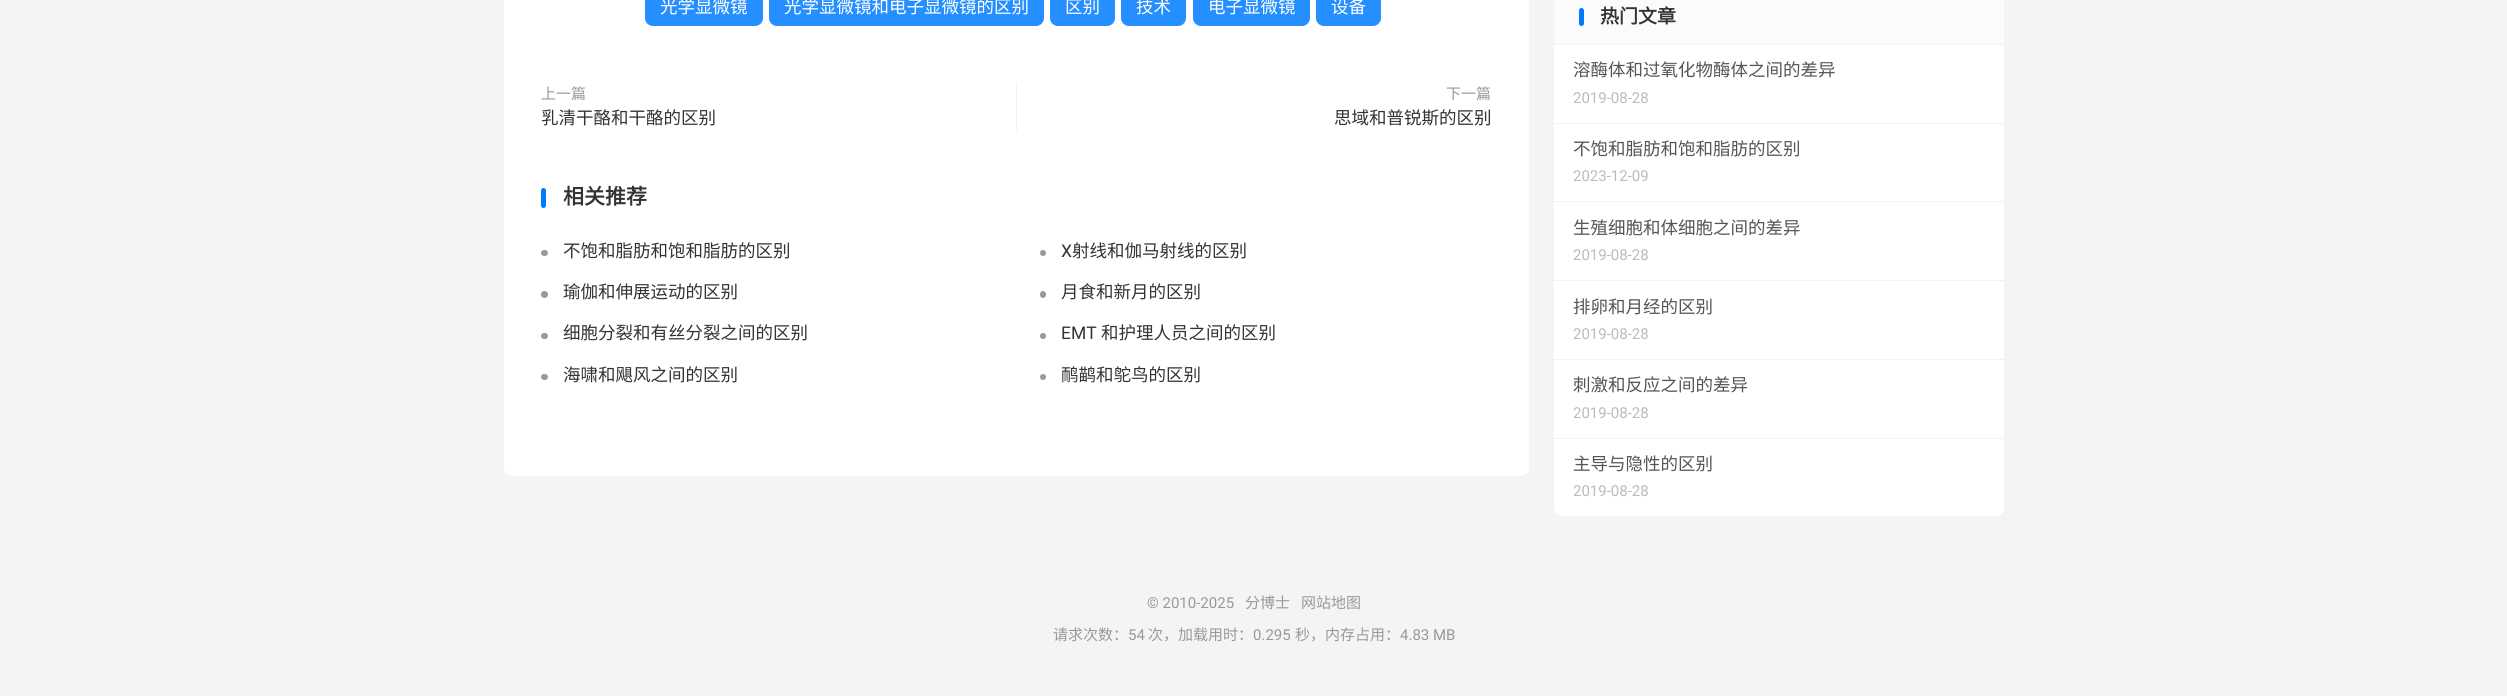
import math
import cairo

surface = cairo.ImageSurface(cairo.FORMAT_RGB24, 2507, 696)
c = cairo.Context(surface)
options = cairo.FontOptions()
options.set_hint_metrics(cairo.HINT_METRICS_OFF)
options.set_hint_style(cairo.HINT_STYLE_NONE)
c.set_font_options(options)
c.set_miter_limit(4)
def C(code):
 c.set_source_rgb(*(v / 255 for v in bytes.fromhex(code[-6:])))
def F(family, size, italic, bold):
 c.select_font_face(family, cairo.FONT_SLANT_ITALIC if italic else cairo.FONT_SLANT_NORMAL, cairo.FONT_WEIGHT_BOLD if bold else cairo.FONT_WEIGHT_NORMAL)
 c.set_font_size(size)
def T(x, y, s):
 c.move_to(x, y)
 c.show_text(s)
def R(x, y, w, h):
 c.rectangle(x, y, w, h)
 c.fill()
def Q(x, y, w, h, r):
 c.new_sub_path()
 for i, (u, v) in enumerate([(x + w - r, y + h - r), (x + r, y + h - r), (x + r, y + r), (x + w - r, y + r)]):
  c.arc(u, v, r, i * math.pi / 2, (i + 1) * math.pi / 2)
 c.close_path()
C('f4f4f4')
c.paint()
C('ffffff')
Q(504,-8,1025,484,8)
c.fill()
C('268fff')
Q(645,-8,118,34,8)
c.fill()
F('Noto Sans CJK SC',17.5,0,0)
C('ffffff')
T(660,13,'光学显微镜')
C('268fff')
Q(769,-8,275,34,8)
c.fill()
C('ffffff')
T(784,13,'光学显微镜和电子显微镜的区别')
C('268fff')
Q(1050,-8,65,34,8)
c.fill()
C('ffffff')
T(1065,13,'区别')
C('268fff')
Q(1121,-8,65,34,8)
c.fill()
C('ffffff')
T(1136,13,'技术')
C('268fff')
Q(1193,-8,117,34,8)
c.fill()
C('ffffff')
T(1208,13,'电子显微镜')
C('268fff')
Q(1316,-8,65,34,8)
c.fill()
C('ffffff')
T(1331,13,'设备')
F('Noto Sans CJK SC',15,0,0)
C('999999')
T(541,99,'上一篇')
F('Noto Sans CJK SC',17.5,0,0)
C('333333')
T(541,124,'乳清干酪和干酪的区别')
C('f3f3f3')
R(1016,83,1,48)
F('Noto Sans CJK SC',15,0,0)
C('999999')
T(1446,99,'下一篇')
F('Noto Sans CJK SC',17.5,0,0)
C('333333')
T(1334,124,'思域和普锐斯的区别')
C('007bff')
Q(541,188,5,20,2.5)
c.fill()
F('Noto Sans CJK SC',21,0,1)
C('333333')
T(563,204,'相关推荐')
C('999999')
Q(541,250,7,6,3)
c.fill()
F('Noto Sans CJK SC',17.5,0,0)
C('333333')
T(563,257,'不饱和脂肪和饱和脂肪的区别')
C('999999')
c.new_path()
c.arc(1043,253,3,0,2 * math.pi)
c.fill()
F('Roboto',17.5,0,0)
C('333333')
T(1061,257,'X')
F('Noto Sans CJK SC',17.5,0,0)
T(1072,257,'射线和伽马射线的区别')
C('999999')
c.new_path()
c.arc(544.5,294.5,3.5,0,2 * math.pi)
c.fill()
C('333333')
T(563,298,'瑜伽和伸展运动的区别')
C('999999')
Q(1040,291,6,7,3)
c.fill()
C('333333')
T(1061,298,'月食和新月的区别')
C('999999')
Q(541,333,7,6,3)
c.fill()
C('333333')
T(563,339,'细胞分裂和有丝分裂之间的区别')
C('999999')
c.new_path()
c.arc(1043,336,3,0,2 * math.pi)
c.fill()
F('Roboto',17.5,0,0)
C('333333')
T(1061,339,'EMT')
F('Noto Sans CJK SC',17.5,0,0)
T(1101,339,'和护理人员之间的区别')
C('999999')
Q(541,374,7,6,3)
c.fill()
C('333333')
T(563,381,'海啸和飓风之间的区别')
C('999999')
c.new_path()
c.arc(1043,377,3,0,2 * math.pi)
c.fill()
C('333333')
T(1061,381,'鸸鹋和鸵鸟的区别')
C('ffffff')
Q(1554,-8,450,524,8)
c.fill()
C('fbfbfb')
R(1554,0,450,44)
C('f3f3f3')
R(1554,44,450,1)
C('007bff')
Q(1579,8,5,18,2.5)
c.fill()
F('Noto Sans CJK SC',19,0,1)
C('333333')
T(1600,23,'热门文章')
C('f3f3f3')
R(1554,123,450,1)
F('Noto Sans CJK SC',17.5,0,0)
C('555555')
T(1573,76,'溶酶体和过氧化物酶体之间的差异')
F('Roboto',15,0,0)
C('bbbbbb')
T(1573,103,'2019-08-28')
C('f3f3f3')
R(1554,201,450,1)
F('Noto Sans CJK SC',17.5,0,0)
C('555555')
T(1573,155,'不饱和脂肪和饱和脂肪的区别')
F('Roboto',15,0,0)
C('bbbbbb')
T(1573,181,'2023-12-09')
C('f3f3f3')
R(1554,280,450,1)
F('Noto Sans CJK SC',17.5,0,0)
C('555555')
T(1573,234,'生殖细胞和体细胞之间的差异')
F('Roboto',15,0,0)
C('bbbbbb')
T(1573,260,'2019-08-28')
C('f3f3f3')
R(1554,359,450,1)
F('Noto Sans CJK SC',17.5,0,0)
C('555555')
T(1573,313,'排卵和月经的区别')
F('Roboto',15,0,0)
C('bbbbbb')
T(1573,339,'2019-08-28')
C('f3f3f3')
R(1554,438,450,1)
F('Noto Sans CJK SC',17.5,0,0)
C('555555')
T(1573,391,'刺激和反应之间的差异')
F('Roboto',15,0,0)
C('bbbbbb')
T(1573,418,'2019-08-28')
F('Noto Sans CJK SC',17.5,0,0)
C('555555')
T(1573,470,'主导与隐性的区别')
F('Roboto',15,0,0)
C('bbbbbb')
T(1573,496,'2019-08-28')
C('999999')
T(1147,608,'© 2010-2025')
F('Noto Sans CJK SC',15,0,0)
T(1245,608,'分博士')
T(1301,608,'网站地图')
T(1053,640,'请求次数：')
F('Roboto',15,0,0)
T(1128,640,'54')
F('Noto Sans CJK SC',15,0,0)
T(1148,640,'次，加载用时：')
F('Roboto',15,0,0)
T(1253,640,'0.295')
F('Noto Sans CJK SC',15,0,0)
T(1295,640,'秒，内存占用：')
F('Roboto',15,0,0)
T(1400,640,'4.83 MB')
surface.write_to_png('o.png')
